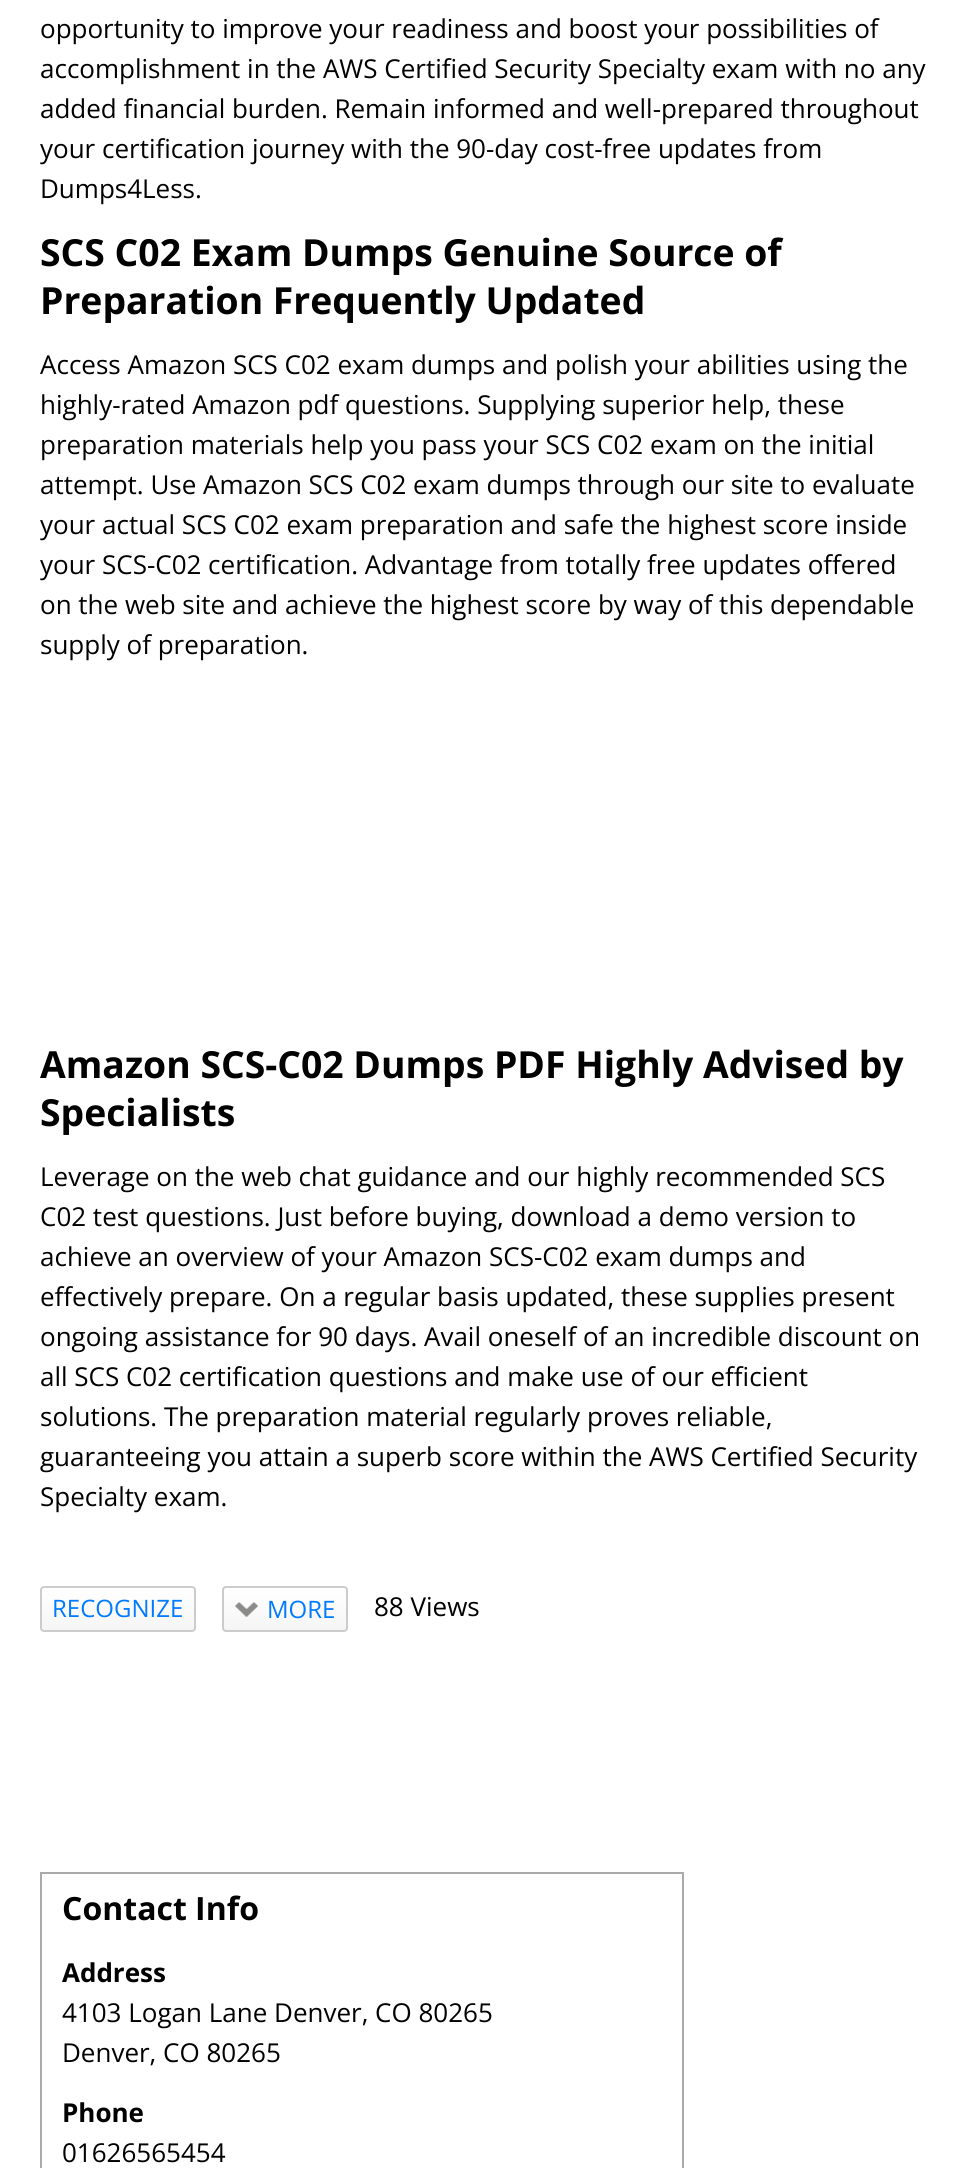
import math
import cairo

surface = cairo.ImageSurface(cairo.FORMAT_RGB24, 969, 2168)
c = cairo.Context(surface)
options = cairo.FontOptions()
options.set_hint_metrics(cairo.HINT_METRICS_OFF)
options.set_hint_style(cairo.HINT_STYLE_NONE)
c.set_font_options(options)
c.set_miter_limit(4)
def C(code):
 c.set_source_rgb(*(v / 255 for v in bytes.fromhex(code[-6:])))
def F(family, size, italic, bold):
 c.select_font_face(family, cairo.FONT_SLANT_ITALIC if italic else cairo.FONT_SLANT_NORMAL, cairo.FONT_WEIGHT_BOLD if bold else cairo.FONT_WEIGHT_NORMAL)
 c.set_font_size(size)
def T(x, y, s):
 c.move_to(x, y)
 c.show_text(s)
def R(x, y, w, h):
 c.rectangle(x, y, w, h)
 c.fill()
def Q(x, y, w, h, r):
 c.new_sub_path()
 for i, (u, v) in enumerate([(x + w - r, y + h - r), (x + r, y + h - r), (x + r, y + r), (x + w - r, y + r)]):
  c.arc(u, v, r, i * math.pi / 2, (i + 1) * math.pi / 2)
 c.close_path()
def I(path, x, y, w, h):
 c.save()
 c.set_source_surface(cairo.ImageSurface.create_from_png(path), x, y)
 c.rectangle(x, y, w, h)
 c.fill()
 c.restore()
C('ffffff')
c.paint()
F('Open Sans',26,0,0)
C('000000')
T(40,38,'opportunity to improve your readiness and boost your possibilities of')
T(40,78,'accomplishment in the AWS Certified Security Specialty exam with no any')
T(40,118,'added financial burden. Remain informed and well-prepared throughout')
T(40,158,'your certification journey with the 90-day cost-free updates from')
T(40,198,'Dumps4Less.')
F('Open Sans',37.3,0,1)
T(40,266,'SCS C02 Exam Dumps Genuine Source of')
T(40,314,'Preparation Frequently Updated')
F('Open Sans',26,0,0)
T(40,374,'Access Amazon SCS C02 exam dumps and polish your abilities using the')
T(40,414,'highly-rated Amazon pdf questions. Supplying superior help, these')
T(40,454,'preparation materials help you pass your SCS C02 exam on the initial')
T(40,494,'attempt. Use Amazon SCS C02 exam dumps through our site to evaluate')
T(40,534,'your actual SCS C02 exam preparation and safe the highest score inside')
T(40,574,'your SCS-C02 certification. Advantage from totally free updates offered')
T(40,614,'on the web site and achieve the highest score by way of this dependable')
T(40,654,'supply of preparation.')
F('Open Sans',37.3,0,1)
T(40,1078,'Amazon SCS-C02 Dumps PDF Highly Advised by')
T(40,1126,'Specialists')
F('Open Sans',26,0,0)
T(40,1186,'Leverage on the web chat guidance and our highly recommended SCS')
T(40,1226,'C02 test questions. Just before buying, download a demo version to')
T(40,1266,'achieve an overview of your Amazon SCS-C02 exam dumps and')
T(40,1306,'effectively prepare. On a regular basis updated, these supplies present')
T(40,1346,'ongoing assistance for 90 days. Avail oneself of an incredible discount on')
T(40,1386,'all SCS C02 certification questions and make use of our efficient')
T(40,1426,'solutions. The preparation material regularly proves reliable,')
T(40,1466,'guaranteeing you attain a superb score within the AWS Certified Security')
T(40,1506,'Specialty exam.')
c.save()
Q(40,1586,156,46,4)
c.clip()
gradient = cairo.LinearGradient(118,1588,118,1630)
gradient.add_color_stop_rgba(0,1,1,1,1)
gradient.add_color_stop_rgba(1,0.961,0.961,0.961,1)
c.set_source(gradient)
R(40,1588,156,42)
c.restore()
Q(41,1587,154,44,3)
C('cccccc')
c.stroke()
F('Open Sans',24,0,0)
C('007aff')
T(52,1617,'RECOGNIZE')
c.save()
Q(222,1586,126,46,4)
c.clip()
gradient = cairo.LinearGradient(285,1588,285,1630)
gradient.add_color_stop_rgba(0,1,1,1,1)
gradient.add_color_stop_rgba(1,0.961,0.961,0.961,1)
c.set_source(gradient)
R(222,1588,126,42)
c.restore()
Q(223,1587,124,44,3)
C('cccccc')
c.stroke()
I('1.png',235,1602,23,15)
C('007aff')
T(267,1618,'MORE')
F('Open Sans',26,0,0)
C('000000')
T(374,1616,'88 Views')
c.rectangle(41,1873,642,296)
C('aaaaaa')
c.stroke()
F('Open Sans',32,0,1)
C('000000')
T(62,1920,'Contact Info')
F('Open Sans',26,0,1)
T(62,1982,'Address')
F('Open Sans',26,0,0)
T(62,2022,'4103 Logan Lane Denver, CO 80265')
T(62,2062,'Denver, CO 80265')
F('Open Sans',26,0,1)
T(62,2122,'Phone')
F('Open Sans',26,0,0)
T(62,2162,'01626565454')
surface.write_to_png('o.png')
